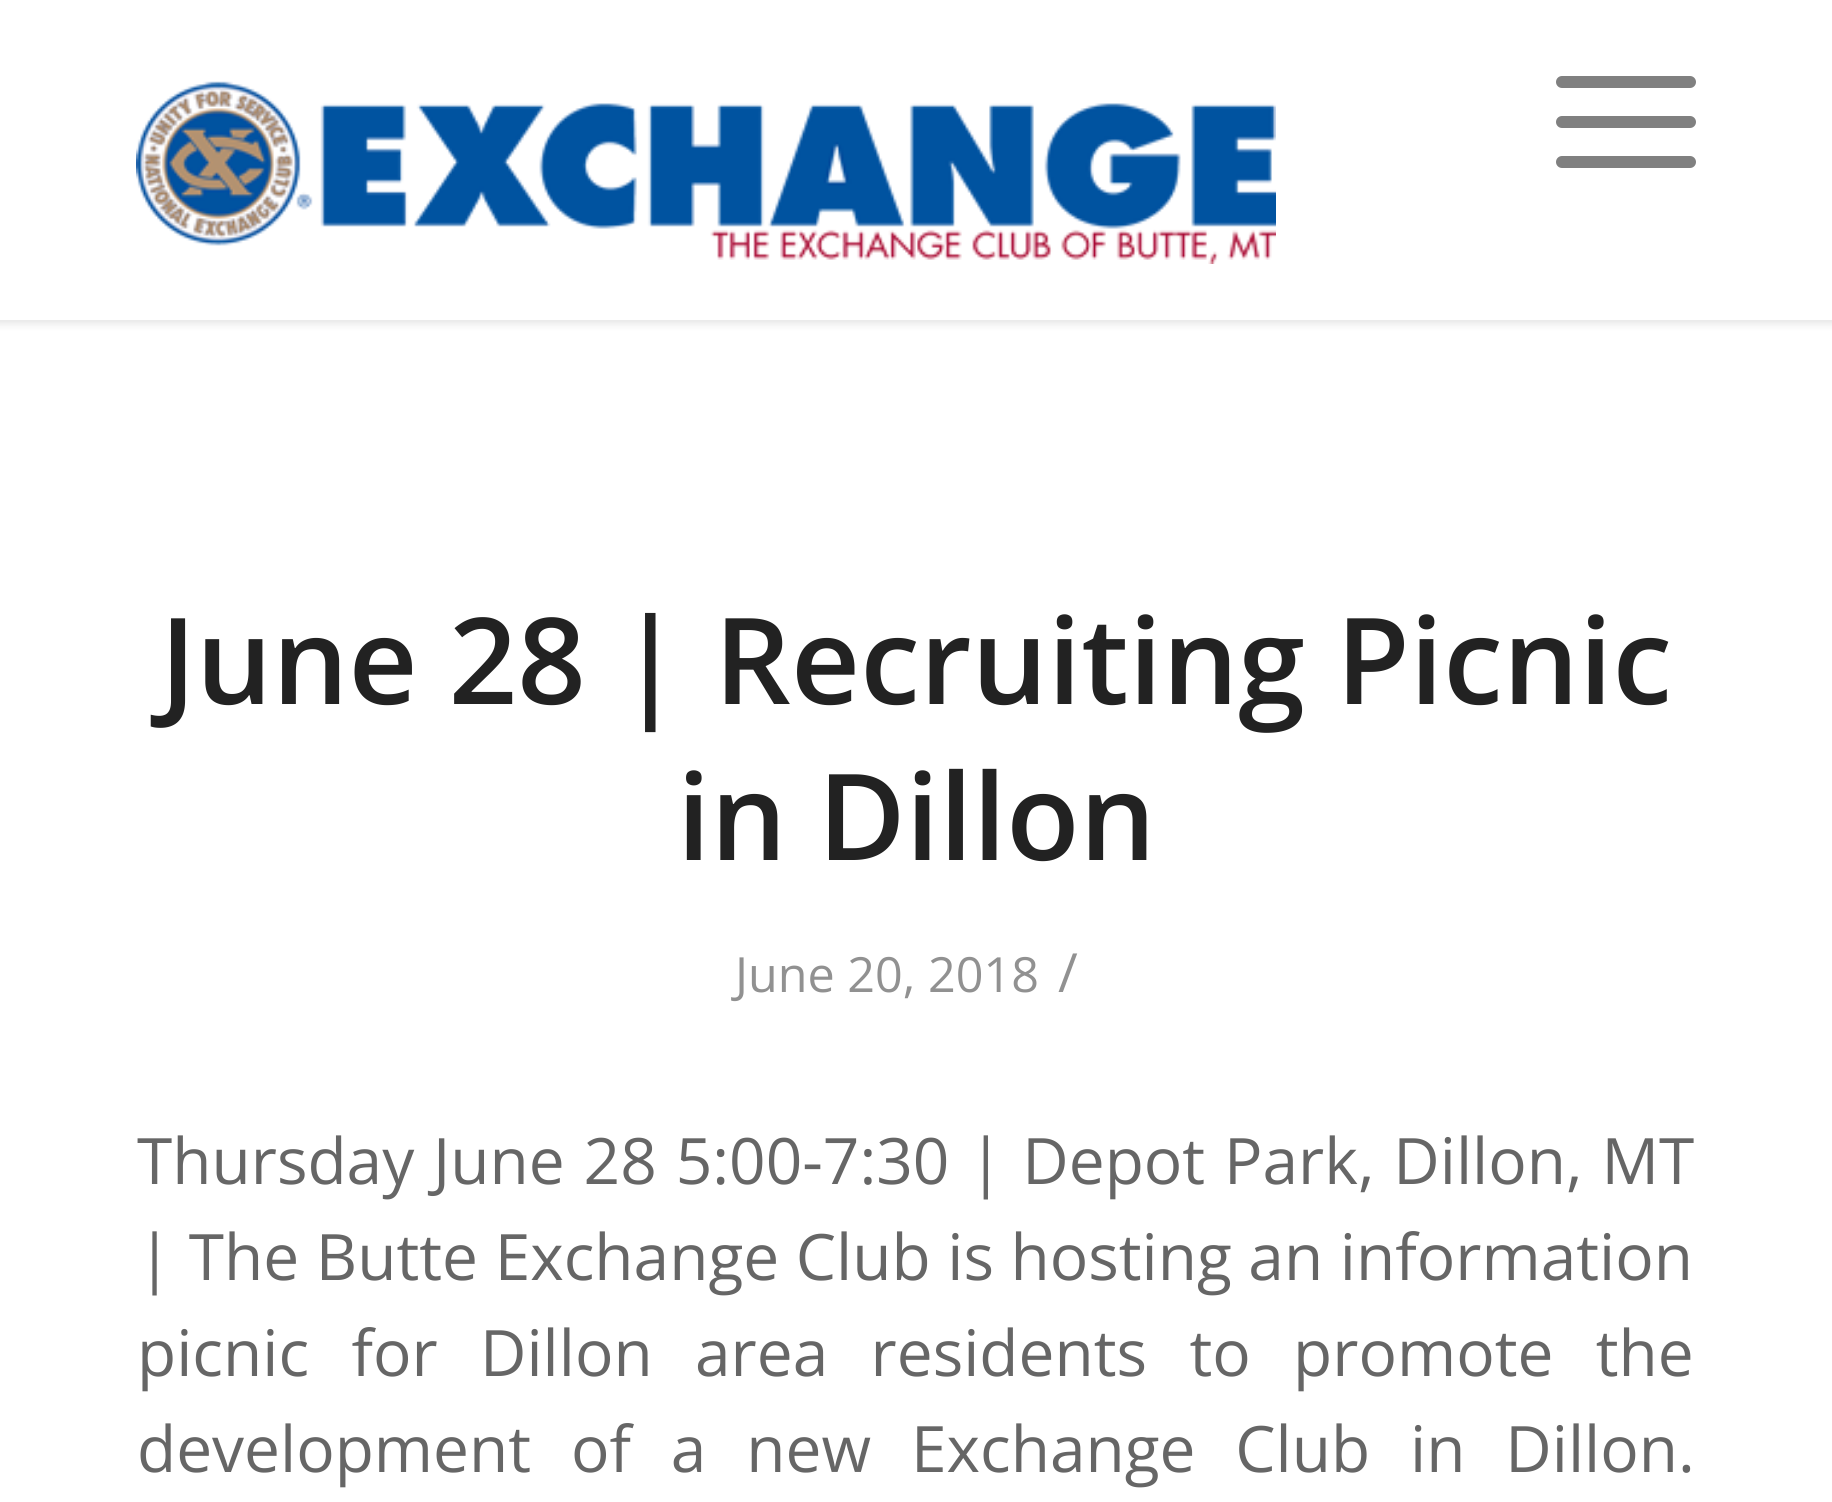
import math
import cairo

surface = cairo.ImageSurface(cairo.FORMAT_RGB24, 1832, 1502)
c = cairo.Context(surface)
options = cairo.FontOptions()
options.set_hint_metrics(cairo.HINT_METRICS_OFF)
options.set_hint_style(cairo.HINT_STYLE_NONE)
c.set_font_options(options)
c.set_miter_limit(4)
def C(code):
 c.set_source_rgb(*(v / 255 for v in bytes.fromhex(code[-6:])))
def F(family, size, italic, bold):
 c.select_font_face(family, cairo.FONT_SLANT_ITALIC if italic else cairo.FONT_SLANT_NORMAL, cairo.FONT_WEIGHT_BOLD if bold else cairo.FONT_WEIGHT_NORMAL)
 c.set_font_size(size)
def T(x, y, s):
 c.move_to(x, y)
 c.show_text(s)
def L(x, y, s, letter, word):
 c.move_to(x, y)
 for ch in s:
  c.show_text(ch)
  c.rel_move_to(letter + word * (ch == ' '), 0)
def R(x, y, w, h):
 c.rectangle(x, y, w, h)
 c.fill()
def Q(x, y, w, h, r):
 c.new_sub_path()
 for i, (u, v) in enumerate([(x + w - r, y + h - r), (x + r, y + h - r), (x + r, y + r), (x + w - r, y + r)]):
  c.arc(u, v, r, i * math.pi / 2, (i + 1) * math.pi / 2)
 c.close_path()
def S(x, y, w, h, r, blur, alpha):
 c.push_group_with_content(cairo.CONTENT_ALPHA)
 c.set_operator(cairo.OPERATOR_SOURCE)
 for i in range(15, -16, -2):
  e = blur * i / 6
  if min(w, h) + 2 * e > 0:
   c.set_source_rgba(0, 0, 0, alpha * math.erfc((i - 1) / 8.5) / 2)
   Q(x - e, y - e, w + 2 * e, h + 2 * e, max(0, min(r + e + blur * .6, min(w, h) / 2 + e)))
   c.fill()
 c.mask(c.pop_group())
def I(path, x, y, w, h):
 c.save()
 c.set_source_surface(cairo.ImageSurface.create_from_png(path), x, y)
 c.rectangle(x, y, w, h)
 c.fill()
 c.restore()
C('ffffff')
c.paint()
C('000000')
S(-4,-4,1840,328,0,4,.1)
C('ffffff')
R(0,0,1832,320)
I('1.png',136,81,1140,183)
C('808080')
Q(1556,116,140,12,6)
c.fill()
Q(1556,76,140,12,6)
c.fill()
Q(1556,156,140,12,6)
c.fill()
F('Open Sans SemiBold',120,0,0)
C('222222')
T(160,704,'June 28 | Recruiting Picnic')
T(677,860,'in Dillon')
F('Open Sans',48.5,0,0)
C('919191')
T(735,992,'June 20, 2018')
F('Open Sans',54,0,0)
T(1058,992,'/')
F('Open Sans',64,0,0)
C('666666')
L(137,1184,'Thursday June 28 5:00-7:30 | Depot Park, Dillon, MT',0,2.25)
T(137,1280,'| The Butte Exchange Club is hosting an information')
L(137,1376,'picnic for Dillon area residents to promote the',0,25.75)
L(137,1472,'development of a new Exchange Club in Dillon.',0,23.25)
surface.write_to_png('o.png')
